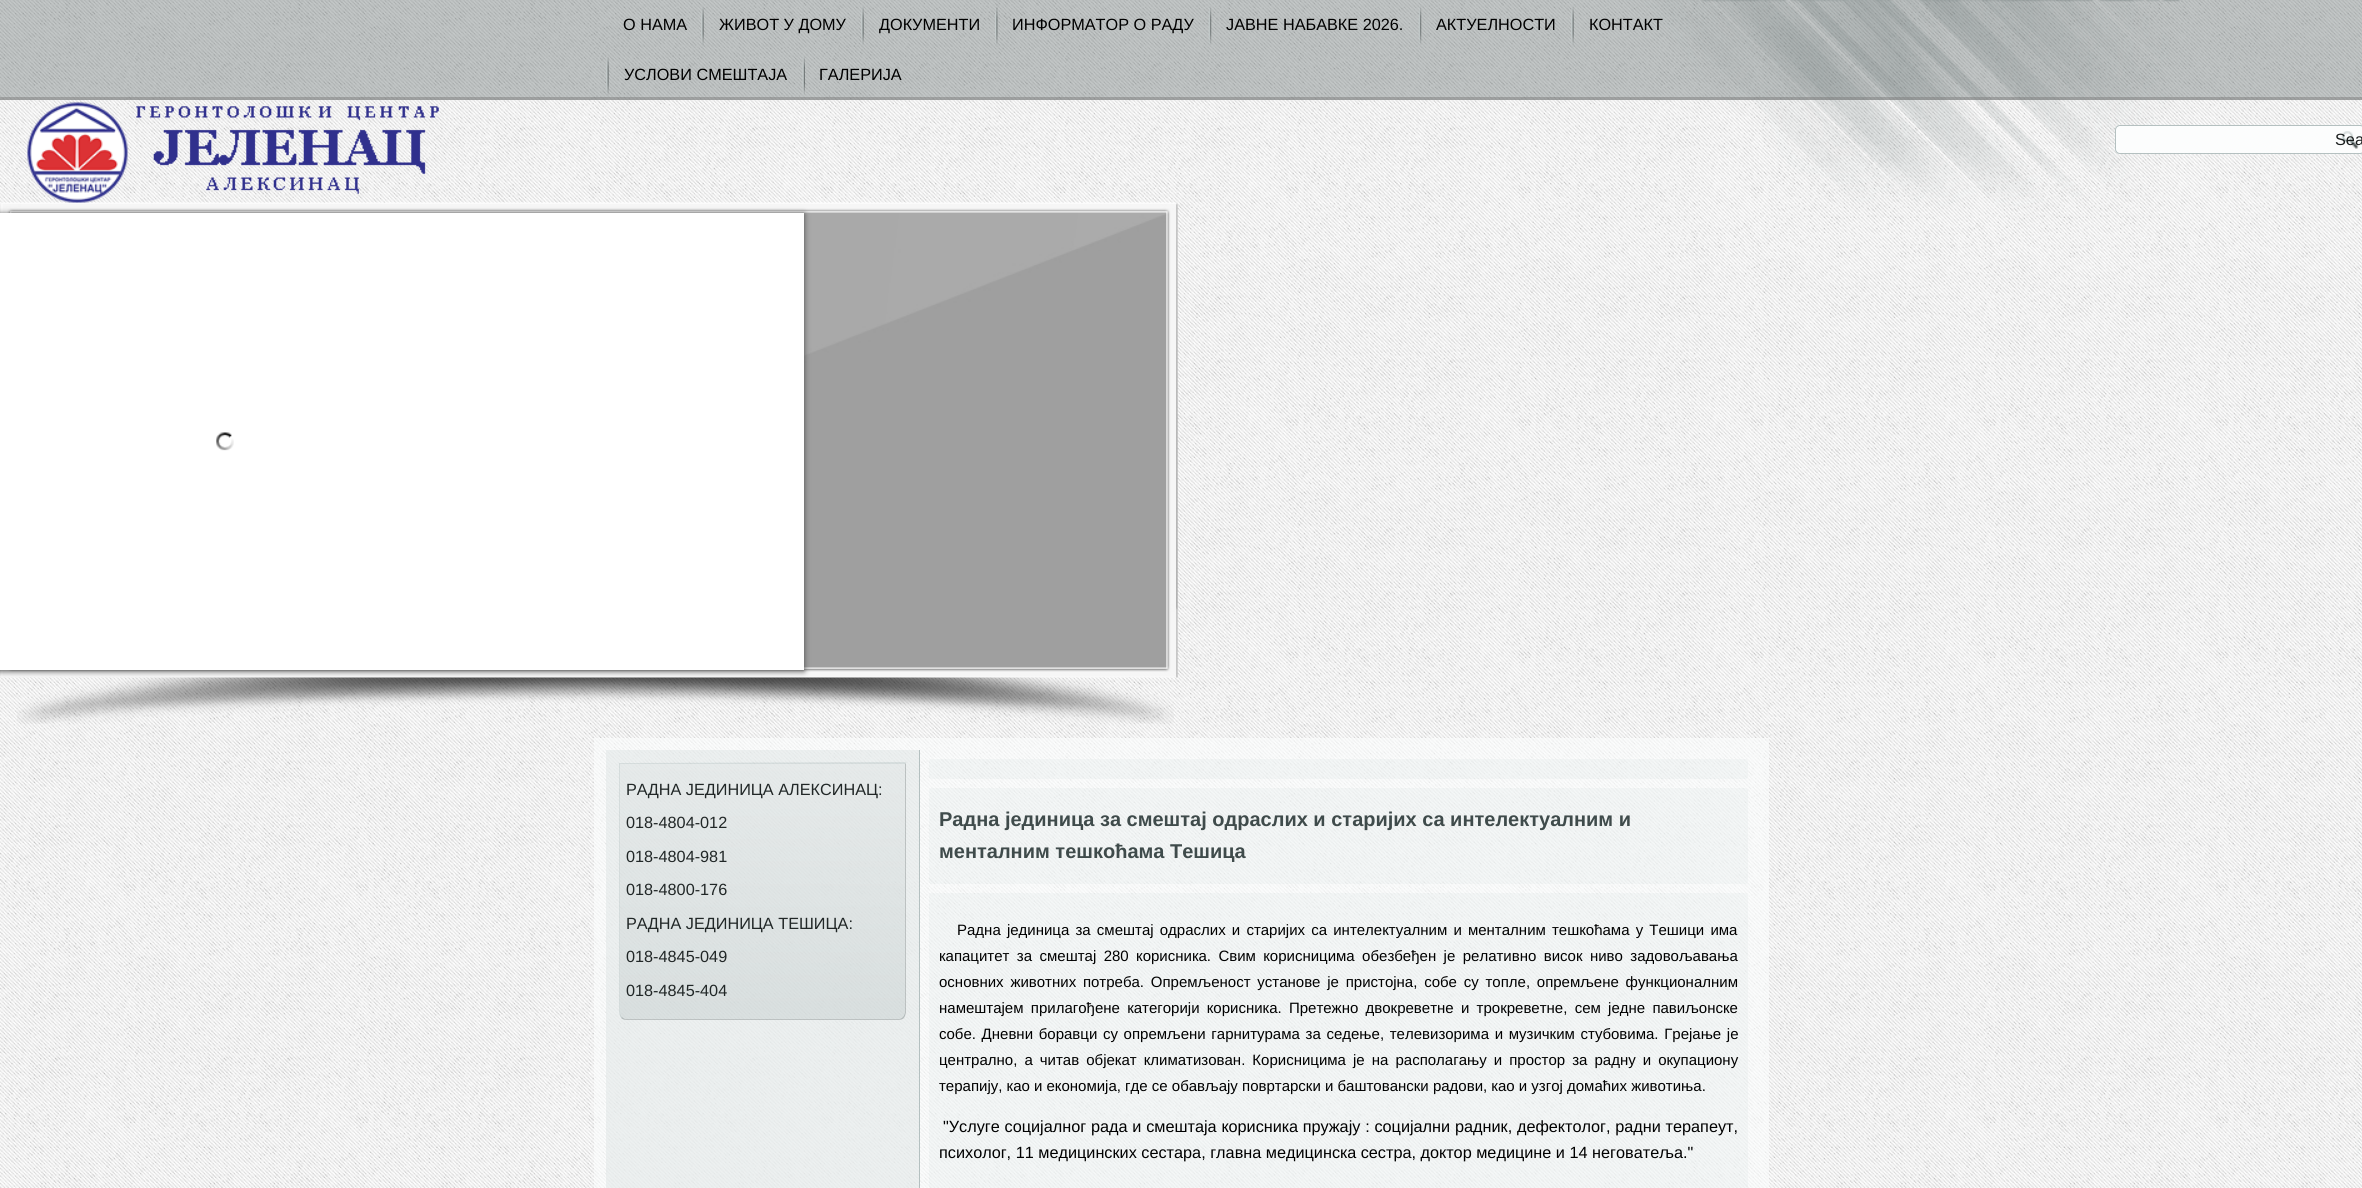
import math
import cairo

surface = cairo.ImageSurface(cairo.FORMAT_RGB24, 2362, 1188)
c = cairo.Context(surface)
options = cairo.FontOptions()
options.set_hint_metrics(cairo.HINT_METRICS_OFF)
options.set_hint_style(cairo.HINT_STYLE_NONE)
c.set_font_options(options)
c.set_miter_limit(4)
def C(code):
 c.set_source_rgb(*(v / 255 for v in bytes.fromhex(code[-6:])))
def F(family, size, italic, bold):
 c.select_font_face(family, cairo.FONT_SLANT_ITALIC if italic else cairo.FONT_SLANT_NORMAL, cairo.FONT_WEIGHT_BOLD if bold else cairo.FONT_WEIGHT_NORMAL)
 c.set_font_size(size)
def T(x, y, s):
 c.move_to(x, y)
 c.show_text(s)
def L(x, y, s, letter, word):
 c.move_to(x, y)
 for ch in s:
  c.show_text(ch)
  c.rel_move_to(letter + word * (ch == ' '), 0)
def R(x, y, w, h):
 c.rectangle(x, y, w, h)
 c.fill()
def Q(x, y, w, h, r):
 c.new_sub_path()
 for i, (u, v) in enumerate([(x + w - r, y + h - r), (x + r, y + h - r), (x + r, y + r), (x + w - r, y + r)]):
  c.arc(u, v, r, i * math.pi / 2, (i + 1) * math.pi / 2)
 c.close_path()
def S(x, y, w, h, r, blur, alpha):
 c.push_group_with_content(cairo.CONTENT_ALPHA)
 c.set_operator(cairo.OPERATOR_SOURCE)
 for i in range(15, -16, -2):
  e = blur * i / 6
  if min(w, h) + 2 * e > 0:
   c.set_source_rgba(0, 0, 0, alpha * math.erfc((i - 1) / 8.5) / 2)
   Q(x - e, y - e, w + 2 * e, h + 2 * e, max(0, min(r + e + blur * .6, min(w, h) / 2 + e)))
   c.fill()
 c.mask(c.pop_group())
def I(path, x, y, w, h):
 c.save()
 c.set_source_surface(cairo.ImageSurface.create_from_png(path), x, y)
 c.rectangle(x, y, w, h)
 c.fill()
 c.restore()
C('ffffff')
c.paint()
I('1.png',0,0,2362,1188)
c.set_source_rgba(0.247,0.294,0.294,0.3)
R(0,0,2362,100)
c.set_source_rgba(0.486,0.486,0.486,0.47)
R(0,97,2362,3)
F('Liberation Sans',16.25,0,0)
C('000000')
T(623,30,'О НАМА')
I('2.png',701,7,3,38)
T(719,30,'ЖИВОТ У ДОМУ')
I('3.png',861,7,3,38)
T(879,30,'ДОКУМЕНТИ')
I('4.png',995,7,3,38)
T(1012,30,'ИНФОРМАТОР О РАДУ')
I('5.png',1208,6,4,39)
T(1226,30,'ЈАВНЕ НАБАВКЕ 2026.')
I('6.png',1418,6,4,39)
T(1436,30,'АКТУЕЛНОСТИ')
I('7.png',1571,7,3,38)
T(1589,30,'КОНТАКТ')
I('8.png',606,57,3,38)
T(624,80,'УСЛОВИ СМЕШТАЈА')
I('9.png',802,56,3,39)
T(819,80,'ГАЛЕРИЈА')
I('14.png',17,677,1157,47)
I('12.png',0,202,1178,476)
I('10.png',27,102,412,101)
C('fcfdfd')
Q(2115.5,125.5,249,28,4.5)
c.fill_preserve()
C('b4c0c0')
c.set_line_width(1)
c.stroke()
I('11.png',2341,131,18,18)
C('1a1e1e')
T(2335,145,'Sea')
C('4a4a4a')
S(-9,214,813,457,0,3,1)
C('ffffff')
R(0,213,804,457)
I('13.png',216,432,18,19)
c.set_source_rgba(0.988,0.992,0.992,0.6)
R(594,738,1175,450)
c.set_source_rgba(0.847,0.871,0.871,0.4)
R(606,750,313,438)
C('b4c0c0')
R(919,750,1,438)
c.save()
c.new_path()
c.move_to(619,763)
c.line_to(906,763)
c.line_to(906,1012)
c.curve_to(906,1016.5,902.5,1020,898,1020)
c.line_to(627,1020)
c.curve_to(622.5,1020,619,1016.5,619,1012)
c.close_path()
c.clip()
gradient = cairo.LinearGradient(763,764,763,1019)
gradient.add_color_stop_rgba(0,0.871,0.89,0.89,.4)
gradient.add_color_stop_rgba(1,0.741,0.78,0.78,.4)
c.set_source(gradient)
R(620,764,285,255)
c.restore()
c.set_source_rgba(0.706,0.753,0.753,0.4)
c.new_path()
c.move_to(619,763)
c.line_to(906,762)
c.line_to(905,764)
c.line_to(620,764)
c.close_path()
c.fill()
c.set_source_rgba(0.471,0.502,0.502,0.4)
c.new_path()
c.move_to(906,763)
c.line_to(906,1012)
c.curve_to(906,1014,905,1016,904,1018)
c.line_to(903,1017)
c.curve_to(904,1016,905,1014,905,1012)
c.line_to(905,764)
c.close_path()
c.fill()
c.new_path()
c.move_to(626,1020)
c.line_to(899,1020)
c.curve_to(901,1020,903,1019,904,1018)
c.line_to(903,1017)
c.curve_to(902,1018,901,1019,899,1019)
c.line_to(626,1019)
c.curve_to(624,1019,623,1018,622,1017)
c.line_to(621,1018)
c.curve_to(622,1019,624,1020,626,1020)
c.close_path()
c.fill()
c.set_source_rgba(0.706,0.753,0.753,0.4)
c.new_path()
c.move_to(620,764)
c.line_to(620,1012)
c.curve_to(620,1014,621,1016,622,1017)
c.line_to(621,1018)
c.curve_to(620,1016,619,1014,619,1012)
c.line_to(619,763)
c.close_path()
c.fill()
C('212727')
T(626,795,'РАДНА ЈЕДИНИЦА АЛЕКСИНАЦ:')
T(626,828,'018-4804-012')
T(626,862,'018-4804-981')
T(626,895,'018-4800-176')
T(626,929,'РАДНА ЈЕДИНИЦА ТЕШИЦА:')
T(626,962,'018-4845-049')
T(626,996,'018-4845-404')
c.set_source_rgba(0.827,0.855,0.855,0.17)
Q(929,759,819,20,2.5)
c.fill()
Q(929,788,819,96,2.5)
c.fill()
F('Liberation Sans',20,0,1)
C('3f4b4b')
T(939,826,'Радна јединица за смештај одраслих и старијих са интелектуалним и')
T(939,858,'менталним тешкоћама Тешица')
c.set_source_rgba(0.827,0.855,0.855,0.17)
Q(929,893,819,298,2.5)
c.fill()
F('Liberation Sans',15,0,0)
C('000000')
L(957,935,'Радна јединица за смештај одраслих и старијих са интелектуалним и менталним тешкоћама у Тешици има',0,2)
L(939,961,'капацитет за смештај 280 корисника. Свим корисницима обезбеђен је релативно висок ниво задовољавања',0,3.25)
L(939,987,'основних животних потреба. Опремљеност установе је пристојна, собе су топле, опремљене функционалним',0,2.6)
L(939,1013,'намештајем прилагођене категорији корисника. Претежно двокреветне и трокреветне, сем једне павиљонске',0,3.1)
L(939,1039,'собе. Дневни боравци су опремљени гарнитурама за седење, телевизорима и музичким стубовима. Грејање је',0,1.5)
L(939,1065,'централно, а читав објекат климатизован. Корисницима је на располагању и простор за радну и окупациону',0,2.9)
T(939,1091,'терапију, као и економија, где се обављају повртарски и баштовански радови, као и узгој домаћих животиња.')
F('Liberation Sans',16.25,0,0)
L(943,1132,'"Услуге социјалног рада и смештаја корисника пружају : социјални радник, дефектолог, радни терапеут,',0,.25)
T(939,1158,'психолог, 11 медицинских сестара, главна медицинска сестра, доктор медицине и 14 неговатеља."')
surface.write_to_png('o.png')
